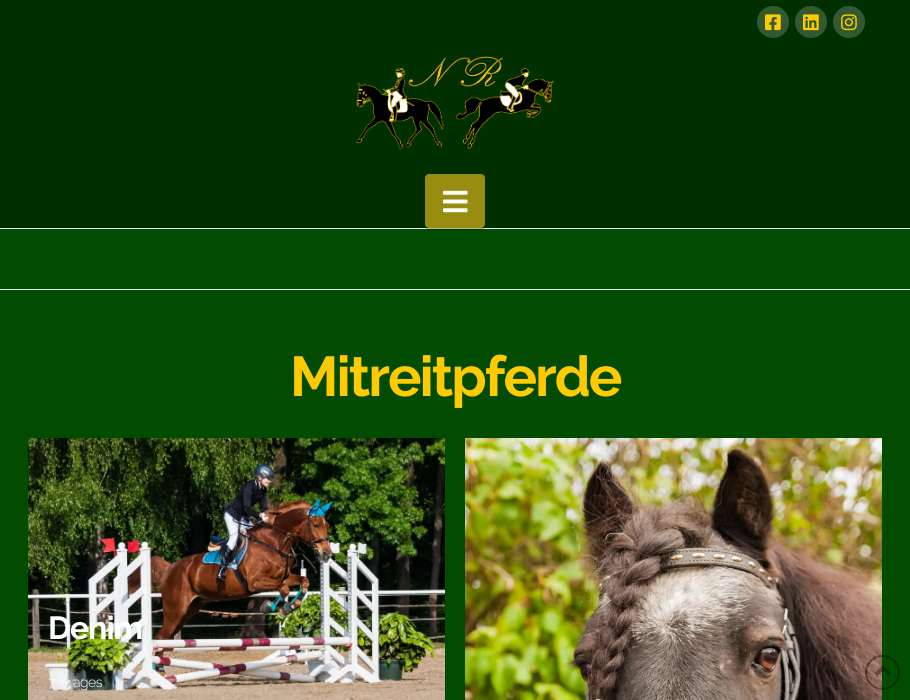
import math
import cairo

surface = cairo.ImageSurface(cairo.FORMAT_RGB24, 910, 700)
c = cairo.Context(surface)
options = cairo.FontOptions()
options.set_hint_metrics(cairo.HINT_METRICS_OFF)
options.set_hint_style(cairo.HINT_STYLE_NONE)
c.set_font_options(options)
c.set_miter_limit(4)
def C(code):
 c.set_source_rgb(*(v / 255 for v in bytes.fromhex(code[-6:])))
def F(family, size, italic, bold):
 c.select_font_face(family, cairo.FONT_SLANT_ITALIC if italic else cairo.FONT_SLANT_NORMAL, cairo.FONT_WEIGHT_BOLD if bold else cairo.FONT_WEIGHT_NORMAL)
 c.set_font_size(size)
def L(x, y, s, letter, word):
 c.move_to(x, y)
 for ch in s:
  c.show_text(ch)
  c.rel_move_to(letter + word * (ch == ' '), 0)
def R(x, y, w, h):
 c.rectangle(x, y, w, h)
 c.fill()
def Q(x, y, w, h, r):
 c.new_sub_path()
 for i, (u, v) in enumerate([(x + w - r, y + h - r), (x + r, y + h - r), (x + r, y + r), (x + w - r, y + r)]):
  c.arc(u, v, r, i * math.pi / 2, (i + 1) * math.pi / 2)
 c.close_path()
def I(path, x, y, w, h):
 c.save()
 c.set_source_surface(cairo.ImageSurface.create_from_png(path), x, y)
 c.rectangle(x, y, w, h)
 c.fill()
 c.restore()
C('014c00')
c.paint()
C('003000')
R(0,0,910,228)
I('1.png',356,56,198,94)
C('335933')
c.arc(773,22,16,0,2 * math.pi)
c.fill()
I('2.png',765,14,16,17)
c.arc(811,22,16,0,2 * math.pi)
c.fill()
I('3.png',803,14,16,17)
c.arc(849,22,16,0,2 * math.pi)
c.fill()
I('4.png',841,14,16,17)
C('f2f2f2')
R(0,228,910,1)
c.set_source_rgba(0,0,0,0.25)
c.new_path()
c.move_to(425,224)
c.curve_to(425,232,430,230,438,230)
c.line_to(472,230)
c.curve_to(480,230,485,232,485,224)
c.curve_to(485,226,483,228,481,228)
c.line_to(429,228)
c.curve_to(427,228,425,226,425,224)
c.close_path()
c.fill()
C('988d10')
Q(425,174,60,54,4)
c.fill()
I('5.png',443,190,25,23)
C('f2f2f2')
R(0,289,910,1)
F('Raleway',56,0,1)
C('ffcb00')
L(290,396,'Mitreitpferde',-2,0)
I('6.png',28,438,417,262)
F('Raleway',32,0,1)
C('ffffff')
L(48,639,'Denim',-1,0)
F('Raleway Light',14,0,0)
L(48,687,'7',-.5,0)
L(73,687,'ages',-.5,0)
I('7.png',465,438,417,262)
c.arc(882.5,672.5,16.5,0,2 * math.pi)
c.set_source_rgba(0,0,0,0.38)
c.stroke()
I('8.png',875,665,16,11)
surface.write_to_png('o.png')
